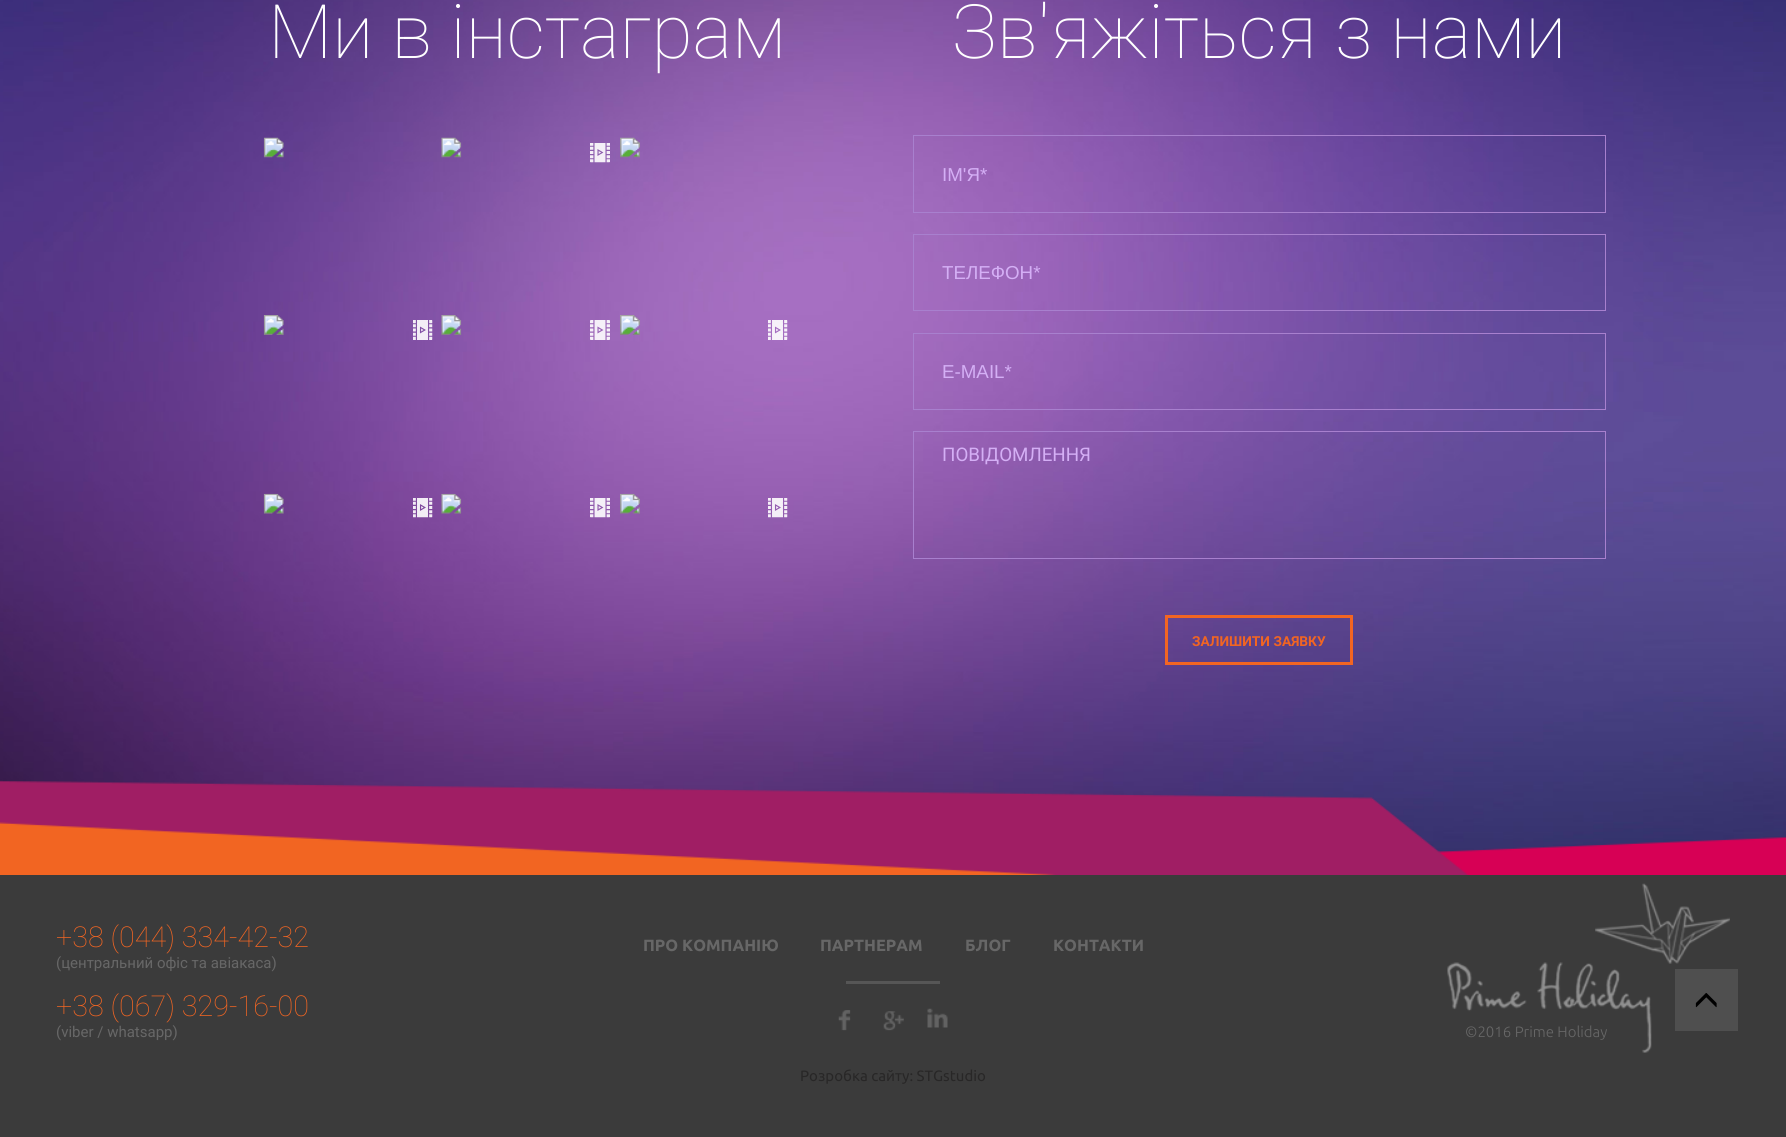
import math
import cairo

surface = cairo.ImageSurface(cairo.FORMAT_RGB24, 1786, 1137)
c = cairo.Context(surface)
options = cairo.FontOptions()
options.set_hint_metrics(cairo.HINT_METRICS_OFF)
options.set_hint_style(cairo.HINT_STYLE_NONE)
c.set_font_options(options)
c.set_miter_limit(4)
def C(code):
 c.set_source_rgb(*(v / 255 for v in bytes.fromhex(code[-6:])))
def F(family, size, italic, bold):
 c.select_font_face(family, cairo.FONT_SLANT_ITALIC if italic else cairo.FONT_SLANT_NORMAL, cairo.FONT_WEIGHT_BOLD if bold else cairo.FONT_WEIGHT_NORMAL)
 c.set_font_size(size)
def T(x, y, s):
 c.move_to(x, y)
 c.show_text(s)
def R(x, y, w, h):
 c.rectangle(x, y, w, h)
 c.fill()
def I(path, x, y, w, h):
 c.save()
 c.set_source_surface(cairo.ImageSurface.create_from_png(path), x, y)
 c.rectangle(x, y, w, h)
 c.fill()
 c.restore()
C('ffffff')
c.paint()
I('1.png',0,0,1786,875)
F('Roboto Thin',75,0,0)
C('ffffff')
T(268,58,'Ми в інстаграм')
I('2.png',263,137,525,381)
T(952,58,'Зв\'яжіться з нами')
c.rectangle(913.5,135.5,692,77)
C('a880ce')
c.set_line_width(1)
c.stroke()
F('Liberation Sans',18.75,0,0)
C('d4aff5')
T(942,181,'ІМ\'Я*')
c.rectangle(913.5,234.5,692,76)
C('a880ce')
c.stroke()
C('d4aff5')
T(942,279,'ТЕЛЕФОН*')
c.rectangle(913.5,333.5,692,76)
C('a880ce')
c.stroke()
C('d4aff5')
T(942,378,'E-MAIL*')
c.rectangle(913.5,431.5,692,127)
C('a880ce')
c.stroke()
F('Roboto',18.75,0,0)
C('d4aff5')
T(942,461,'ПОВІДОМЛЕННЯ')
c.rectangle(1166.5,616.5,185,47)
C('f26522')
c.set_line_width(3)
c.stroke()
F('Roboto',13.75,0,1)
T(1192,646,'ЗАЛИШИТИ ЗАЯВКУ')
C('3b3b3b')
R(0,875,1786,262)
F('Roboto Thin',28.75,0,0)
C('f26522')
T(56,947,'+38 (044) 334-42-32')
F('Roboto',15,0,0)
C('676767')
T(56,968,'(центральний офіс та авіакаса)')
F('Roboto Thin',28.75,0,0)
C('f26522')
T(56,1016,'+38 (067) 329-16-00')
F('Roboto',15,0,0)
C('676767')
T(56,1037,'(viber / whatsapp)')
F('Ubuntu',16.25,0,1)
T(643,951,'ПРО КОМПАНІЮ')
T(820,951,'ПАРТНЕРАМ')
T(965,951,'БЛОГ')
T(1053,951,'КОНТАКТИ')
C('565656')
R(846,981,94,3)
I('3.png',838,1010,13,21)
I('4.png',883,1011,21,20)
I('5.png',927,1008,21,20)
I('6.png',1447,962,205,91)
I('7.png',1595,883,135,81)
F('Ubuntu Light',15,0,0)
C('676767')
T(1465,1037,'©2016 Prime Holiday')
F('Ubuntu',15,0,0)
C('282727')
T(800,1081,'Розробка сайту: STGstudio')
C('4f4f4f')
R(1675,969,63,62)
I('8.png',1695,993,22,15)
surface.write_to_png('o.png')
